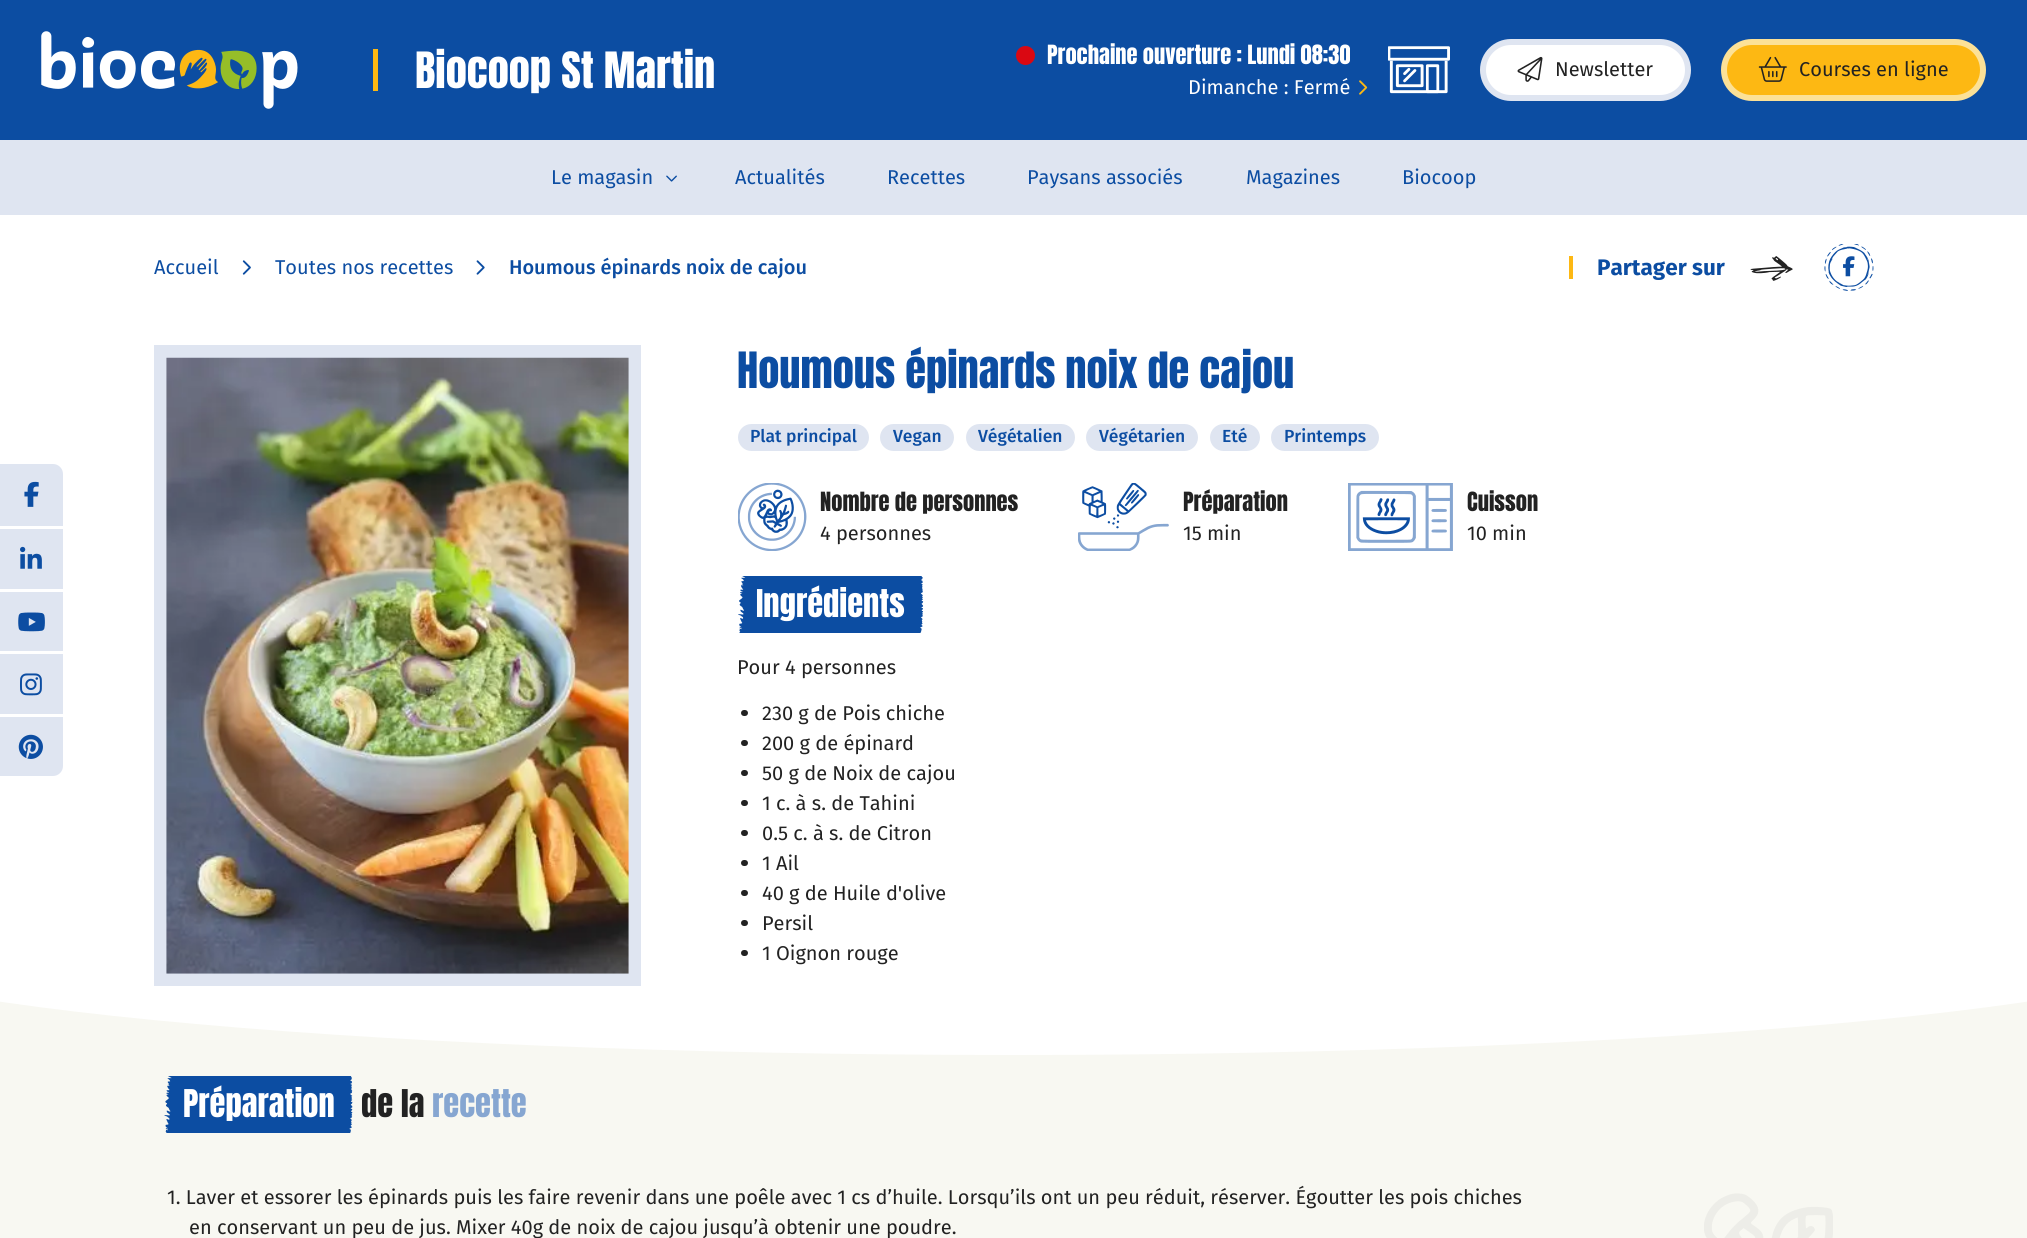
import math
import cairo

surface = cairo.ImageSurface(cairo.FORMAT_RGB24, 2027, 1238)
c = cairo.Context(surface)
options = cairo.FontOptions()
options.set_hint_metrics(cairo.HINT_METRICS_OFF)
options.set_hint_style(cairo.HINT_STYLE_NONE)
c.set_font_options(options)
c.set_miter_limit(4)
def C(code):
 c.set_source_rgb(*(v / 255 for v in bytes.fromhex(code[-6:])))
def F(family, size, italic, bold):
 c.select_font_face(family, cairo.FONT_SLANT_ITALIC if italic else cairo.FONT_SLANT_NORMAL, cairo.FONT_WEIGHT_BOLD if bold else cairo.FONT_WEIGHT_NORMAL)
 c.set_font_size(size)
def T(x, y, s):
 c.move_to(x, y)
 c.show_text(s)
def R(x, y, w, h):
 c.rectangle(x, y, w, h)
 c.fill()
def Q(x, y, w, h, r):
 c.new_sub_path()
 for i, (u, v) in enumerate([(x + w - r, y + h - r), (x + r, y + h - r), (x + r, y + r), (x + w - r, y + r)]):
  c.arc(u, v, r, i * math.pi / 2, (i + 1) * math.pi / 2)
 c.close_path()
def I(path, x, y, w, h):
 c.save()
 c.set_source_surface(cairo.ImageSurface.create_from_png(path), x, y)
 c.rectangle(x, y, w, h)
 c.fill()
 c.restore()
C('ffffff')
c.paint()
C('0c4da2')
R(0,0,2027,140)
I('1.png',41,31,257,78)
C('fdb813')
R(373,49,5,42)
F('Anton',42.5,0,0)
C('ffffff')
T(415,88,'Biocoop St Martin')
C('da0812')
c.new_path()
c.arc(1025.5,55.5,9.5,0,2 * math.pi)
c.fill()
F('Anton',22.5,0,0)
C('ffffff')
T(1047,64,'Prochaine ouverture : Lundi 08:30')
I('2.png',1388,46,62,48)
F('Fira Sans',20,0,0)
T(1188,94,'Dimanche : Fermé')
I('3.png',1359,80,9,15)
Q(1483,42,205,56,28)
c.fill_preserve()
C('dfe5f1')
c.set_line_width(6)
c.stroke()
I('4.png',1517,56,26,26)
C('222222')
T(1555,76,'Newsletter')
C('fdb813')
Q(1724,42,259,56,28)
c.fill_preserve()
C('fce197')
c.stroke()
I('5.png',1758,56,29,26)
C('222222')
T(1799,76,'Courses en ligne')
C('dfe5f1')
R(0,140,2027,75)
C('0c4da2')
T(551,184,'Le magasin')
I('6.png',666,175,11,7)
T(735,184,'Actualités')
T(887,184,'Recettes')
T(1027,184,'Paysans associés')
T(1246,184,'Magazines')
T(1402,184,'Biocoop')
C('dfe5f1')
c.new_path()
c.move_to(0,464)
c.line_to(53,464)
c.curve_to(58.5,464,63,468.5,63,474)
c.line_to(63,526)
c.line_to(0,526)
c.close_path()
c.fill()
I('7.png',24,481,15,26)
R(0,529,63,60)
I('8.png',20,546,22,23)
R(0,592,63,59)
I('9.png',18,612,27,20)
R(0,654,63,60)
I('10.png',20,673,22,23)
c.new_path()
c.move_to(0,716)
c.line_to(63,716)
c.line_to(63,766)
c.curve_to(63,771.5,58.5,776,53,776)
c.line_to(0,776)
c.close_path()
c.fill()
C('ffffff')
R(0,716,63,1)
I('11.png',18,734,25,25)
C('0c4da2')
T(154,274,'Accueil')
I('12.png',242,260,9,15)
T(275,274,'Toutes nos recettes')
I('13.png',476,260,9,15)
F('Fira Sans Medium',20,0,0)
T(509,274,'Houmous épinards noix de cajou')
C('fdb813')
R(1569,256,4,23)
F('Fira Sans',22.5,0,1)
C('0c4da2')
T(1597,275,'Partager sur')
I('14.png',1750,256,43,25)
I('15.png',1824,244,50,47)
I('16.png',1843,256,12,21)
c.rectangle(160.5,351.5,474,628)
C('dfe5f1')
c.set_line_width(13)
c.stroke()
I('17.png',166,357,463,617)
F('Anton',42.5,0,0)
C('0c4da2')
T(737,388,'Houmous épinards noix de cajou')
C('dfe5f1')
Q(738,424,131,27,13.5)
c.fill()
F('Fira Sans Medium',17.5,0,0)
C('0c4da2')
T(750,442,'Plat principal')
C('dfe5f1')
Q(880,424,74,27,13.5)
c.fill()
C('0c4da2')
T(893,442,'Vegan')
C('dfe5f1')
Q(966,424,109,27,13.5)
c.fill()
C('0c4da2')
T(978,442,'Végétalien')
C('dfe5f1')
Q(1086,424,112,27,13.5)
c.fill()
C('0c4da2')
T(1099,442,'Végétarien')
C('dfe5f1')
Q(1210,424,50,27,13.5)
c.fill()
C('0c4da2')
T(1222,442,'Eté')
C('dfe5f1')
Q(1271,424,108,27,13.5)
c.fill()
C('0c4da2')
T(1284,442,'Printemps')
I('18.png',738,483,69,68)
F('Anton',22.5,0,0)
C('222222')
T(820,511,'Nombre de personnes')
F('Fira Sans',20,0,0)
T(820,540,'4 personnes')
I('19.png',1078,483,91,68)
F('Anton',22.5,0,0)
T(1183,511,'Préparation')
F('Fira Sans',20,0,0)
T(1183,540,'15 min')
I('20.png',1348,483,105,68)
F('Anton',22.5,0,0)
T(1467,511,'Cuisson')
F('Fira Sans',20,0,0)
T(1467,540,'10 min')
I('21.png',738,576,186,57)
F('Anton',32.5,0,0)
C('ffffff')
T(756,617,'Ingrédients')
F('Fira Sans',20,0,0)
C('222222')
T(737,674,'Pour 4 personnes')
Q(741,710,7,6,3)
c.fill()
T(762,720,'230 g de Pois chiche')
Q(741,740,7,6,3)
c.fill()
T(762,750,'200 g de épinard')
Q(741,770,7,6,3)
c.fill()
T(762,780,'50 g de Noix de cajou')
Q(741,800,7,6,3)
c.fill()
T(762,810,'1 c. à s. de Tahini')
Q(741,830,7,6,3)
c.fill()
T(762,840,'0.5 c. à s. de Citron')
Q(741,860,7,6,3)
c.fill()
T(762,870,'1 Ail')
Q(741,890,7,6,3)
c.fill()
T(762,900,'40 g de Huile d\'olive')
Q(741,920,7,6,3)
c.fill()
T(762,930,'Persil')
Q(741,950,7,6,3)
c.fill()
T(762,960,'1 Oignon rouge')
C('f8f8f2')
R(0,1001,2027,237)
c.save()
c.rectangle(0,989,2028,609)
c.clip()
C('ffffff')
c.new_path()
c.move_to(1013.5,817)
c.curve_to(1685,817,2229.5,870.5,2229.5,936)
c.curve_to(2229.5,1001.5,1685,1055,1013.5,1055)
c.curve_to(342,1055,-202.5,1001.5,-202.5,936)
c.curve_to(-202.5,870.5,342,817,1013.5,817)
c.close_path()
c.fill()
c.restore()
I('22.png',164,1076,189,57)
F('Anton',32.5,0,0)
C('ffffff')
T(183,1117,'Préparation')
C('222222')
T(361,1117,'de la')
C('86a6d1')
T(432,1117,'recette')
F('Fira Sans',20,0,0)
C('222222')
T(167,1204,'1. Laver et essorer les épinards puis les faire revenir dans une poêle avec 1 cs d’huile. Lorsqu’ils ont un peu réduit, réserver. Égoutter les pois chiches')
T(189,1234,'en conservant un peu de jus. Mixer 40g de noix de cajou jusqu’à obtenir une poudre.')
I('23.png',1704,1193,129,45)
surface.write_to_png('o.png')
